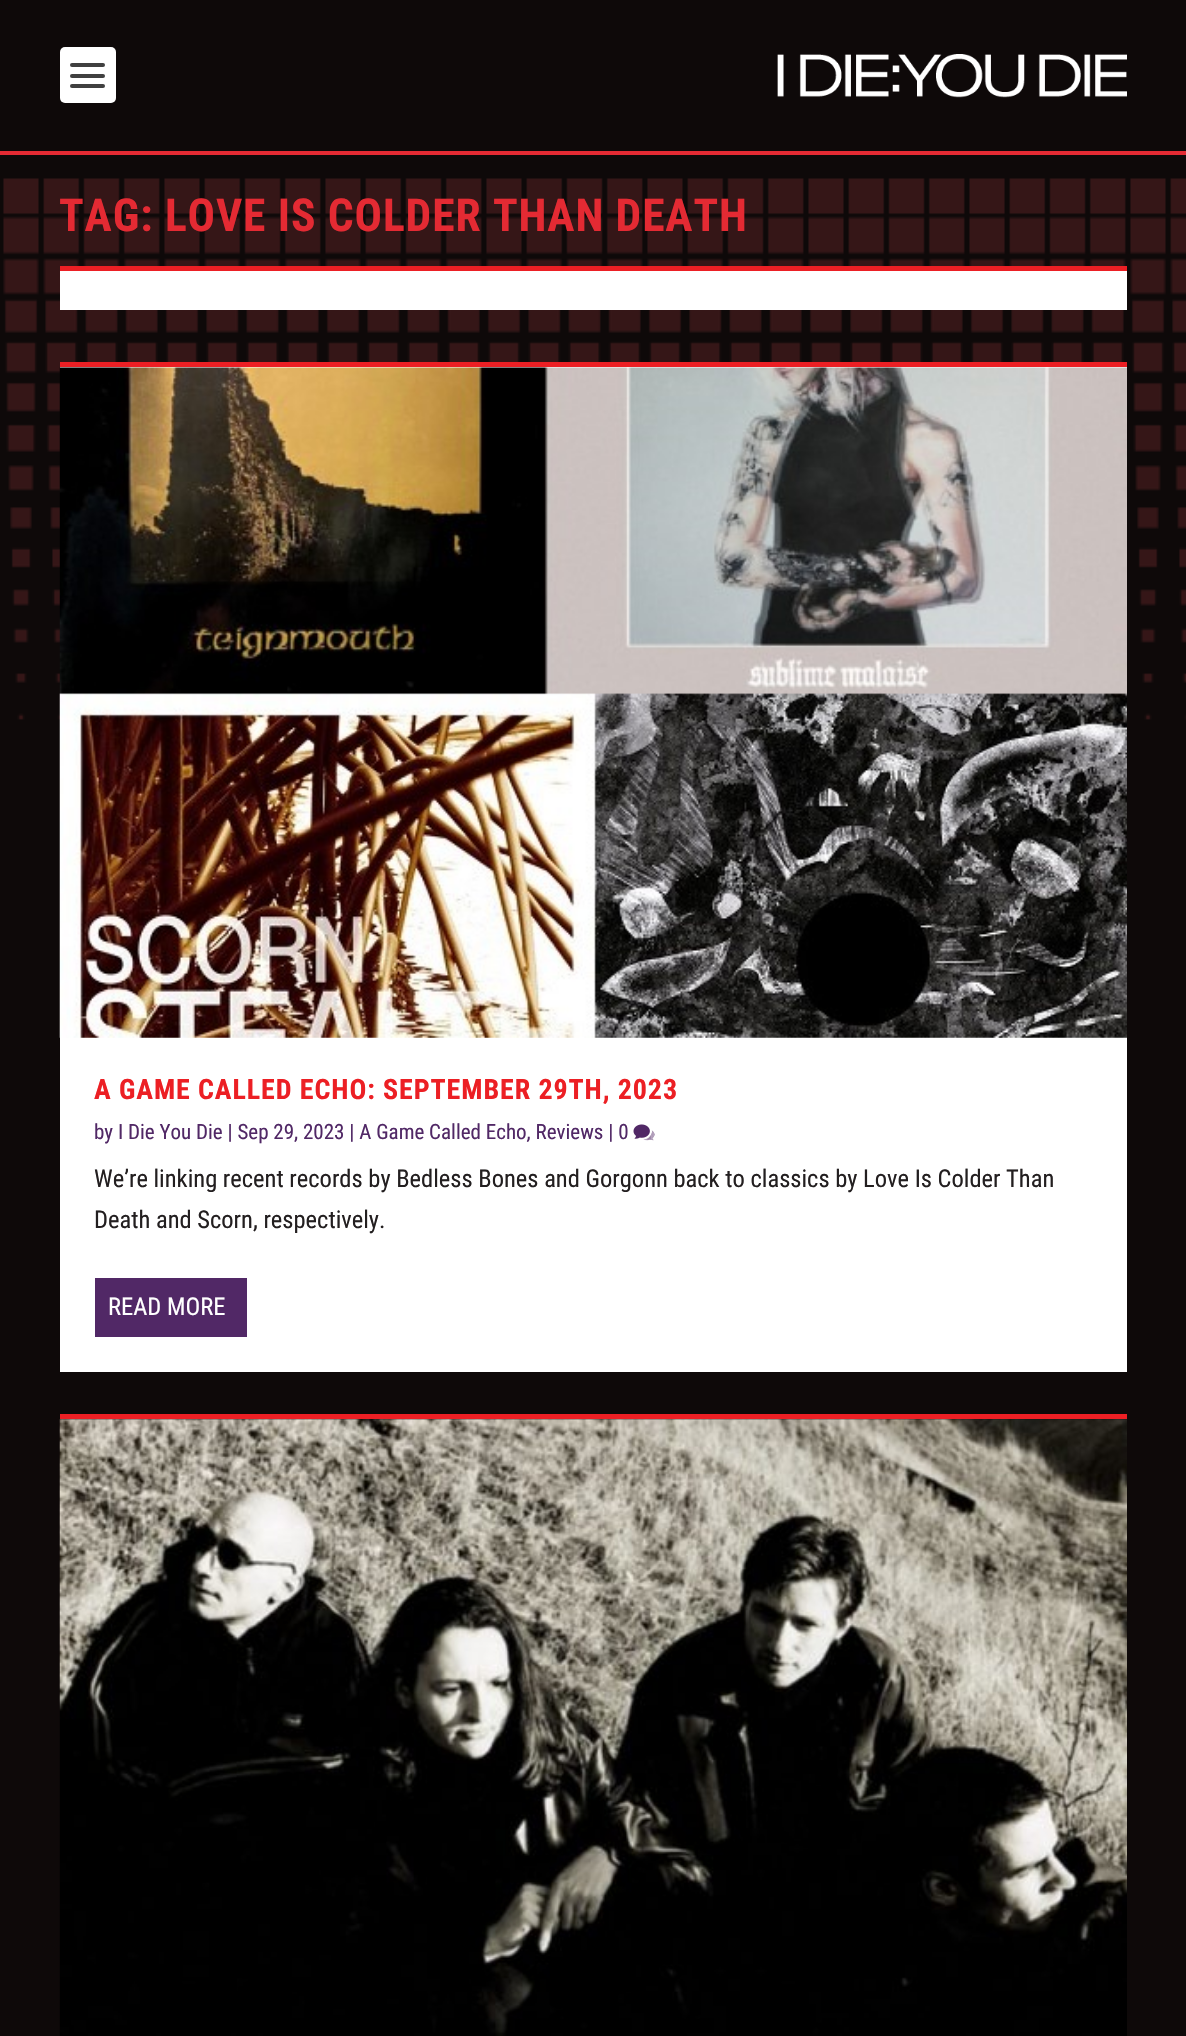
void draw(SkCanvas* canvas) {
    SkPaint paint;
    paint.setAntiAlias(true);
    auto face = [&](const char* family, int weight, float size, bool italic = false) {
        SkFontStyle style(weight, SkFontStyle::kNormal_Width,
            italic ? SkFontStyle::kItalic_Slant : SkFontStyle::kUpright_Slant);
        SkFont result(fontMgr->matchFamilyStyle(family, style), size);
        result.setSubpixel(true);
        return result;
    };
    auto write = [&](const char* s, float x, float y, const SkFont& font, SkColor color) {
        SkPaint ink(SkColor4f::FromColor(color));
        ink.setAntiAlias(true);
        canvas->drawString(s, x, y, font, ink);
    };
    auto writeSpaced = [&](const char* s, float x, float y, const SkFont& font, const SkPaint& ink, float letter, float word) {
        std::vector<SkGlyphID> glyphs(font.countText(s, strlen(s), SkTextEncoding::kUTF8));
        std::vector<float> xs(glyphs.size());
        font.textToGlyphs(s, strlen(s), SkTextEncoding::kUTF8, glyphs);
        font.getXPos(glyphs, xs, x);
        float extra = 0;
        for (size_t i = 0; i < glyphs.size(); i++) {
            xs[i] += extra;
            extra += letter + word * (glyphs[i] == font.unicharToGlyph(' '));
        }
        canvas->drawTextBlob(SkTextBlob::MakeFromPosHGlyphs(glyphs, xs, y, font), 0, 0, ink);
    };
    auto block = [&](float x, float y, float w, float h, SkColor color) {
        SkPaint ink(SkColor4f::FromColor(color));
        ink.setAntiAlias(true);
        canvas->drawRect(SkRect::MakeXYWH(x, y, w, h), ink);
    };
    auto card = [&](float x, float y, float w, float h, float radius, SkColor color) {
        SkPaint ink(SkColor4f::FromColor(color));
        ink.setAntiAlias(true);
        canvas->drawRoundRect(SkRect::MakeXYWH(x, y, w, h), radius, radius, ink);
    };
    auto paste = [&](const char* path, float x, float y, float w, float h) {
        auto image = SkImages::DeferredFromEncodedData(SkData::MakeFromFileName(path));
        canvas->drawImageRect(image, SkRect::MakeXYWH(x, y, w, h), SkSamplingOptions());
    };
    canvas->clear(SkColorSetRGB(14, 9, 9));
    paste("pic1.png", 3, 178, 1183, 542);
    block(0, 151, 1186, 4, SkColorSetRGB(228, 42, 51));
    card(60, 47, 56, 56, 5, SK_ColorWHITE);
    card(70, 63, 35, 4, 2, SkColorSetRGB(64, 64, 64));
    card(70, 74, 35, 4, 2, SkColorSetRGB(64, 64, 64));
    card(70, 84, 35, 4, 2, SkColorSetRGB(64, 64, 64));
    paste("pic2.png", 777, 54, 350, 44);
    auto kFont1 = face("Roboto Condensed", 700, 45.5f);
    paint.setColor(SkColorSetRGB(228, 42, 51));
    writeSpaced("TAG: LOVE IS COLDER THAN DEATH", 59, 231, kFont1, paint, 0.9f, 0);
    block(60, 271, 1067, 39, SK_ColorWHITE);
    block(60, 266, 1067, 5, SkColorSetRGB(236, 31, 36));
    block(60, 367, 1067, 1005, SK_ColorWHITE);
    block(60, 362, 1067, 5, SkColorSetRGB(236, 31, 36));
    paste("pic3.png", 59, 367, 1068, 671);
    auto kFont2 = face("Roboto Condensed", 700, 28);
    paint.setColor(SkColorSetRGB(236, 31, 36));
    writeSpaced("A GAME CALLED ECHO: SEPTEMBER 29TH, 2023", 94, 1099, kFont2, paint, 0.9f, 0);
    auto kFont3 = face("Roboto Condensed", 400, 21);
    write("by I Die You Die | Sep 29, 2023 | A Game Called Echo, Reviews | 0", 94, 1139, kFont3, SkColorSetRGB(81, 40, 102));
    paste("pic4.png", 633, 1124, 22, 17);
    auto kFont4 = face("Roboto Condensed", 400, 24.5f);
    write("We’re linking recent records by Bedless Bones and Gorgonn back to classics by Love Is Colder Than", 94, 1187, kFont4, SkColorSetRGB(35, 31, 32));
    write("Death and Scorn, respectively.", 94, 1228, kFont4, SkColorSetRGB(35, 31, 32));
    block(95, 1278, 152, 59, SkColorSetRGB(81, 40, 102));
    write("READ MORE", 108, 1315, kFont4, SK_ColorWHITE);
    block(60, 1414, 1067, 5, SkColorSetRGB(236, 31, 36));
    paste("pic5.png", 59, 1419, 1068, 617);
}
